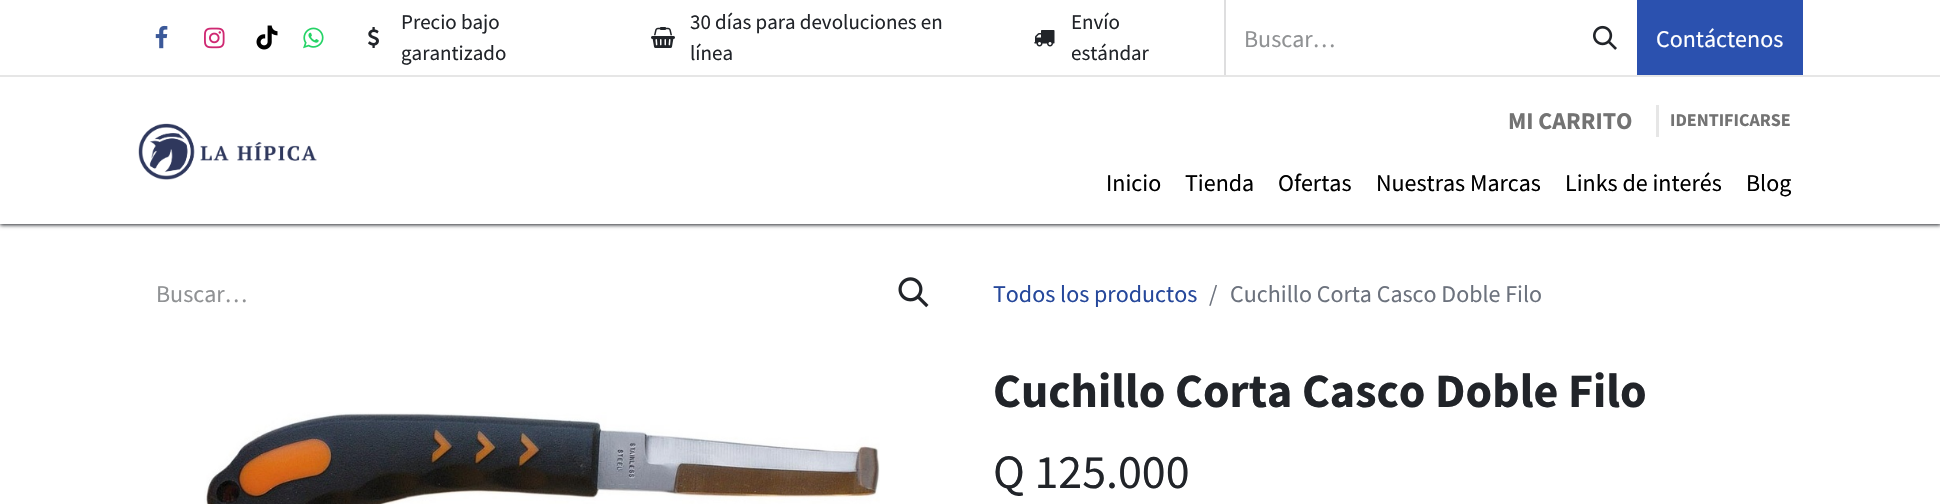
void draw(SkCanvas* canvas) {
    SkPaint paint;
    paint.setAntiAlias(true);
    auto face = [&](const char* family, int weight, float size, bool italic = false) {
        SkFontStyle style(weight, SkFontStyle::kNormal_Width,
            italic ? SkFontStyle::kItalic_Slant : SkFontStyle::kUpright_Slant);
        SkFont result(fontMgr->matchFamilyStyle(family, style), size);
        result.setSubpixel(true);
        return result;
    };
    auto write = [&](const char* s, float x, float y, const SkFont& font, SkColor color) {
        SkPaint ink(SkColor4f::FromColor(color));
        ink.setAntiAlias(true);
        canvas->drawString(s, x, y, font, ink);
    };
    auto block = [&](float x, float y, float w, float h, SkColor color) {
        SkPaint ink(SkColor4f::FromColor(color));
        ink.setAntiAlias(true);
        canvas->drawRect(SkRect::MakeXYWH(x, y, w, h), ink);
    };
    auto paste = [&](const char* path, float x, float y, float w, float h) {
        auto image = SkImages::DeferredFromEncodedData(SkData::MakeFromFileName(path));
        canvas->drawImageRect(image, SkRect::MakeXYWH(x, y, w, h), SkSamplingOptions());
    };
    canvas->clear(SK_ColorWHITE);
    paint.setColor(SkColorSetRGB(33, 36, 41));
    paint.setMaskFilter(SkMaskFilter::MakeBlur(kNormal_SkBlurStyle, 2));
    canvas->drawRect(SkRect::MakeXYWH(0, 2, 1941, 223), paint);
    paint.setMaskFilter(nullptr);
    block(0, 0, 1940, 224, SK_ColorWHITE);
    block(0, 75, 1940, 2, SkColorSetRGB(230, 230, 230));
    paste("pic1.png", 155, 25, 13, 24);
    paste("pic2.png", 204, 27, 21, 22);
    paste("pic3.png", 256, 25, 22, 25);
    paste("pic4.png", 303, 27, 21, 22);
    auto kFont1 = face("Source Sans Pro", 400, 21);
    write("Precio bajo", 401, 29, kFont1, SkColorSetRGB(33, 36, 41));
    paste("pic5.png", 368, 27, 11, 21);
    write("garantizado", 401, 60, kFont1, SkColorSetRGB(33, 36, 41));
    write("30 días para devoluciones en", 690, 29, kFont1, SkColorSetRGB(33, 36, 41));
    paste("pic6.png", 651, 27, 24, 21);
    write("línea", 690, 60, kFont1, SkColorSetRGB(33, 36, 41));
    write("Envío", 1071, 29, kFont1, SkColorSetRGB(33, 36, 41));
    paste("pic7.png", 1034, 30, 21, 17);
    write("estándar", 1071, 60, kFont1, SkColorSetRGB(33, 36, 41));
    block(1224, 0, 2, 75, SkColorSetRGB(222, 222, 223));
    auto kFont2 = face("Source Sans Pro", 400, 24);
    write("Buscar…", 1244, 47, kFont2, SkColorSetRGB(144, 146, 148));
    paste("pic8.png", 1593, 25, 24, 25);
    block(1637, 0, 166, 75, SkColorSetRGB(43, 81, 175));
    write("Contáctenos", 1656, 47, kFont2, SK_ColorWHITE);
    paste("pic9.png", 138, 123, 179, 57);
    auto kFont3 = face("Source Sans Pro", 700, 24);
    write("MI CARRITO", 1508, 129, kFont3, SkColorSetRGB(115, 115, 115));
    block(1656, 105, 3, 32, SkColorSetRGB(230, 230, 230));
    auto kFont4 = face("Source Sans Pro", 700, 18);
    write("IDENTIFICARSE", 1670, 126, kFont4, SkColorSetRGB(115, 115, 115));
    write("Inicio", 1106, 191, kFont2, SK_ColorBLACK);
    write("Tienda", 1185, 191, kFont2, SK_ColorBLACK);
    write("Ofertas", 1278, 191, kFont2, SK_ColorBLACK);
    write("Nuestras Marcas", 1376, 191, kFont2, SK_ColorBLACK);
    write("Links de interés", 1565, 191, kFont2, SK_ColorBLACK);
    write("Blog", 1746, 191, kFont2, SK_ColorBLACK);
    write("Buscar…", 156, 302, kFont2, SkColorSetRGB(144, 146, 148));
    paste("pic10.png", 898, 277, 31, 31);
    write("Todos los productos", 993, 302, kFont2, SkColorSetRGB(38, 72, 155));
    write("/", 1209, 302, kFont2, SkColorSetRGB(108, 114, 125));
    write("Cuchillo Corta Casco Doble Filo", 1230, 302, kFont2, SkColorSetRGB(108, 114, 125));
    paste("pic11.png", 204, 412, 676, 92);
    auto kFont5 = face("Source Sans Pro", 700, 48);
    write("Cuchillo Corta Casco Doble Filo", 993, 407, kFont5, SkColorSetRGB(33, 36, 41));
    auto kFont6 = face("Source Sans Pro", 400, 48);
    write("Q 125.000", 993, 488, kFont6, SkColorSetRGB(33, 36, 41));
}
